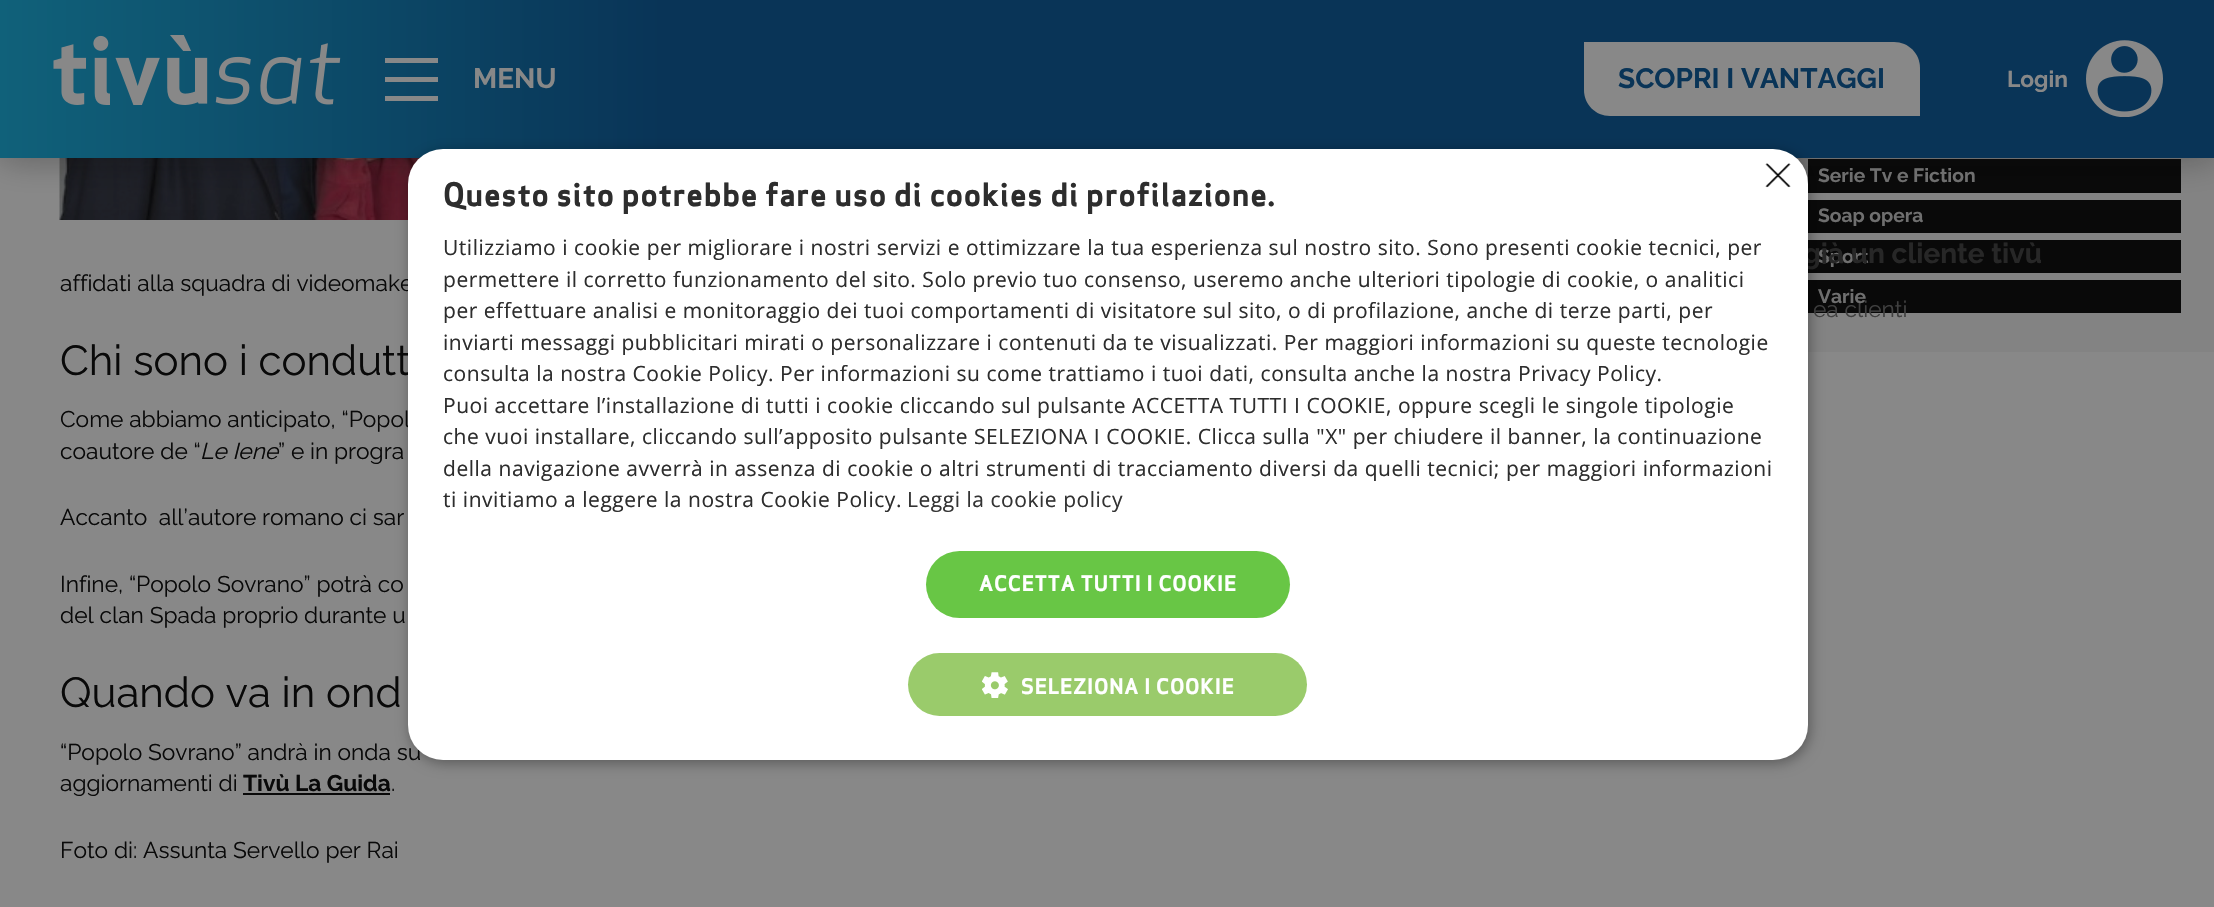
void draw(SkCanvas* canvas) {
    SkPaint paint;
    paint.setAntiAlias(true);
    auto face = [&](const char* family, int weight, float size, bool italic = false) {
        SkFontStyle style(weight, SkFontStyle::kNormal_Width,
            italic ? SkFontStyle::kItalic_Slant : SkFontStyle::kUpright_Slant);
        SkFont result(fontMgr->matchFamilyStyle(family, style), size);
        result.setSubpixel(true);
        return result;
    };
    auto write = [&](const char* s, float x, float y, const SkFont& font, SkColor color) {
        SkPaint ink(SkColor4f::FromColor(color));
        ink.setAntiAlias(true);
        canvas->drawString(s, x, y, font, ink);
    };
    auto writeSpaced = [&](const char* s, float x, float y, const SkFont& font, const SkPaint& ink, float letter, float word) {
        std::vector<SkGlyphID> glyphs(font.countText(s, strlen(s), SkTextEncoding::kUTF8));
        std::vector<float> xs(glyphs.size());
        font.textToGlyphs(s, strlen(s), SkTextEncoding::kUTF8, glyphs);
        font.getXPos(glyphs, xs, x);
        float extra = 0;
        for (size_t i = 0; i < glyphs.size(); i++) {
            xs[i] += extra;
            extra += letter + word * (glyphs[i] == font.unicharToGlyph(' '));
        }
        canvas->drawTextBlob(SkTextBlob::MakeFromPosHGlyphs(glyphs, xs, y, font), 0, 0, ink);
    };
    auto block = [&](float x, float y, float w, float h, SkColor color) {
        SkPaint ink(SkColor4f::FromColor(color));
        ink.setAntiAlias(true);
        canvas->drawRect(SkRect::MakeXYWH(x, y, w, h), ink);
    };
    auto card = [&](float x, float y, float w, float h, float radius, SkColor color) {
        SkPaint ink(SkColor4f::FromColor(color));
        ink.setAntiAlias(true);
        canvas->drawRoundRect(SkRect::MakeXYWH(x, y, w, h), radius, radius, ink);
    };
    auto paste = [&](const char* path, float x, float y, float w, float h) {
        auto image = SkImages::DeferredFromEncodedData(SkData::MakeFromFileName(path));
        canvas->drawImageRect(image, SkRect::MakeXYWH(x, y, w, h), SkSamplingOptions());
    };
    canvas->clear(SkColorSetRGB(136, 136, 136));
    block(1796, 158, 418, 194, SkColorSetRGB(131, 131, 131));
    block(1808, 159, 373, 34, SkColorSetRGB(9, 9, 9));
    block(1808, 200, 373, 33, SkColorSetRGB(9, 9, 9));
    paste("pic3.png", 59, 158, 361, 62);
    paint.setColor(SkColorSetARGB(89, 9, 9, 9));
    paint.setMaskFilter(SkMaskFilter::MakeBlur(kNormal_SkBlurStyle, 17.5f));
    canvas->drawRect(SkRect::MakeXYWH(0, 0, 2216, 158), paint);
    paint.setMaskFilter(nullptr);
    {
        const SkColor colors[] = {SkColorSetRGB(16, 97, 122), SkColorSetRGB(9, 52, 87)};
        const float stops[] = {0, 0.3f};
        const SkPoint ends[] = {{0, 79}, {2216, 79}};
        paint.setShader(SkGradientShader::MakeLinear(ends, colors, stops, 2, SkTileMode::kClamp));
        paint.setAlpha(255);
    }
    canvas->drawRect(SkRect::MakeXYWH(0, 0, 2214, 158), paint);
    paste("pic1.png", 53, 35, 288, 70);
    block(385, 77, 53, 5, SkColorSetRGB(136, 136, 136));
    block(385, 58, 53, 5, SkColorSetRGB(136, 136, 136));
    block(385, 96, 53, 5, SkColorSetRGB(136, 136, 136));
    auto kFont1 = face("Raleway", 700, 28);
    write("MENU", 473, 88, kFont1, SkColorSetRGB(136, 136, 136));
    paint.setShader(nullptr);
    paint.setColor(SkColorSetRGB(136, 136, 136));
    canvas->drawPath(SkPathBuilder().moveTo(1584, 42).lineTo(1894, 42).cubicTo(1908.5f, 42, 1920, 53.5f, 1920, 68).lineTo(1920, 116).lineTo(1610, 116).cubicTo(1595.5f, 116, 1584, 104.5f, 1584, 90).close().detach(), paint);
    write("SCOPRI I VANTAGGI", 1618, 88, kFont1, SkColorSetRGB(9, 52, 87));
    auto kFont2 = face("Raleway", 700, 22.75f);
    write("Login", 2007, 87, kFont2, SkColorSetRGB(136, 136, 136));
    paste("pic2.png", 2086, 40, 77, 77);
    block(1808, 240, 373, 33, SkColorSetRGB(9, 9, 9));
    auto kFont3 = face("Raleway", 700, 19.25f);
    write("Sport", 1818, 263, kFont3, SkColorSetRGB(111, 111, 111));
    write("già un cliente tivù", 1803, 263, kFont1, SkColorSetRGB(39, 39, 39));
    block(1808, 280, 373, 33, SkColorSetRGB(9, 9, 9));
    auto kFont4 = face("Raleway", 400, 22.75f);
    write("ea clienti", 1813, 317, kFont4, SkColorSetRGB(64, 64, 64));
    write("Serie Tv e Fiction", 1818, 182, kFont3, SkColorSetRGB(111, 111, 111));
    write("Soap opera", 1818, 222, kFont3, SkColorSetRGB(111, 111, 111));
    write("Varie", 1818, 303, kFont3, SkColorSetRGB(111, 111, 111));
    write("affidati alla squadra di videomake", 60, 291, kFont4, SkColorSetRGB(9, 9, 9));
    auto kFont5 = face("Raleway", 400, 42);
    write("Chi sono i condutt", 60, 375, kFont5, SkColorSetRGB(9, 9, 9));
    write("Come abbiamo anticipato, “Popol", 60, 427, kFont4, SkColorSetRGB(9, 9, 9));
    write("coautore de “", 60, 459, kFont4, SkColorSetRGB(9, 9, 9));
    auto kFont6 = face("Raleway", 400, 22.75f, true);
    write("Le Iene", 200, 459, kFont6, SkColorSetRGB(9, 9, 9));
    write("” e in progra", 278, 459, kFont4, SkColorSetRGB(9, 9, 9));
    write("Accanto  all’autore romano ci sar", 60, 525, kFont4, SkColorSetRGB(9, 9, 9));
    write("Infine, “Popolo Sovrano” potrà co", 60, 592, kFont4, SkColorSetRGB(9, 9, 9));
    write("del clan Spada proprio durante u", 60, 623, kFont4, SkColorSetRGB(9, 9, 9));
    write("Quando va in ond", 60, 707, kFont5, SkColorSetRGB(9, 9, 9));
    write("“Popolo Sovrano” andrà in onda su", 60, 760, kFont4, SkColorSetRGB(9, 9, 9));
    write("aggiornamenti di", 60, 791, kFont4, SkColorSetRGB(9, 9, 9));
    write("Tivù La Guida", 243, 791, kFont2, SkColorSetRGB(9, 9, 9));
    block(243, 793, 147, 2, SkColorSetRGB(9, 9, 9));
    write(".", 391, 791, kFont4, SkColorSetRGB(9, 9, 9));
    write("Foto di: Assunta Servello per Rai", 60, 858, kFont4, SkColorSetRGB(9, 9, 9));
    paint.setColor(SkColorSetARGB(89, 0, 0, 0));
    paint.setMaskFilter(SkMaskFilter::MakeBlur(kNormal_SkBlurStyle, 7));
    canvas->drawRoundRect(SkRect::MakeXYWH(410, 152, 1400, 611), 35, 35, paint);
    paint.setMaskFilter(nullptr);
    card(408, 149, 1400, 611, 35, SK_ColorWHITE);
    auto kFont7 = face("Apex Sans", 700, 31.5f);
    paint.setColor(SkColorSetRGB(45, 45, 45));
    writeSpaced("Questo sito potrebbe fare uso di cookies di profilazione.", 443, 206, kFont7, paint, 0.7f, 0);
    auto kFont8 = face("Open Sans", 400, 21);
    writeSpaced("Utilizziamo i cookie per migliorare i nostri servizi e ottimizzare la tua esperienza sul nostro sito. Sono presenti cookie tecnici, per", 443, 255, kFont8, paint, 0.53f, 0);
    writeSpaced("permettere il corretto funzionamento del sito. Solo previo tuo consenso, useremo anche ulteriori tipologie di cookie, o analitici", 443, 287, kFont8, paint, 0.53f, 0);
    writeSpaced("per effettuare analisi e monitoraggio dei tuoi comportamenti di visitatore sul sito, o di profilazione, anche di terze parti, per", 443, 318, kFont8, paint, 0.53f, 0);
    writeSpaced("inviarti messaggi pubblicitari mirati o personalizzare i contenuti da te visualizzati. Per maggiori informazioni su queste tecnologie", 443, 350, kFont8, paint, 0.53f, 0);
    writeSpaced("consulta la nostra Cookie Policy. Per informazioni su come trattiamo i tuoi dati, consulta anche la nostra Privacy Policy.", 443, 381, kFont8, paint, 0.53f, 0);
    writeSpaced("Puoi accettare l’installazione di tutti i cookie cliccando sul pulsante ACCETTA TUTTI I COOKIE, oppure scegli le singole tipologie", 443, 413, kFont8, paint, 0.53f, 0);
    writeSpaced("che vuoi installare, cliccando sull’apposito pulsante SELEZIONA I COOKIE. Clicca sulla \"X\" per chiudere il banner, la continuazione", 443, 444, kFont8, paint, 0.53f, 0);
    writeSpaced("della navigazione avverrà in assenza di cookie o altri strumenti di tracciamento diversi da quelli tecnici; per maggiori informazioni", 443, 476, kFont8, paint, 0.53f, 0);
    writeSpaced("ti invitiamo a leggere la nostra Cookie Policy.", 443, 507, kFont8, paint, 0.53f, 0);
    paint.setColor(SkColorSetRGB(51, 51, 51));
    writeSpaced("Leggi la cookie policy", 907, 507, kFont8, paint, 0.53f, 0);
    paste("pic4.png", 1765, 163, 26, 25);
    card(926, 551, 364, 67, 33.5f, SkColorSetRGB(104, 198, 69));
    auto kFont9 = face("Apex Sans", 700, 21);
    paint.setColor(SK_ColorWHITE);
    writeSpaced("ACCETTA TUTTI I COOKIE", 979, 591, kFont9, paint, 0.7f, 0);
    card(908, 653, 399, 63, 31.5f, SkColorSetRGB(154, 203, 107));
    paste("pic5.png", 982, 672, 26, 26);
    writeSpaced("SELEZIONA I COOKIE", 1021, 694, kFont9, paint, 0.7f, 0);
}
